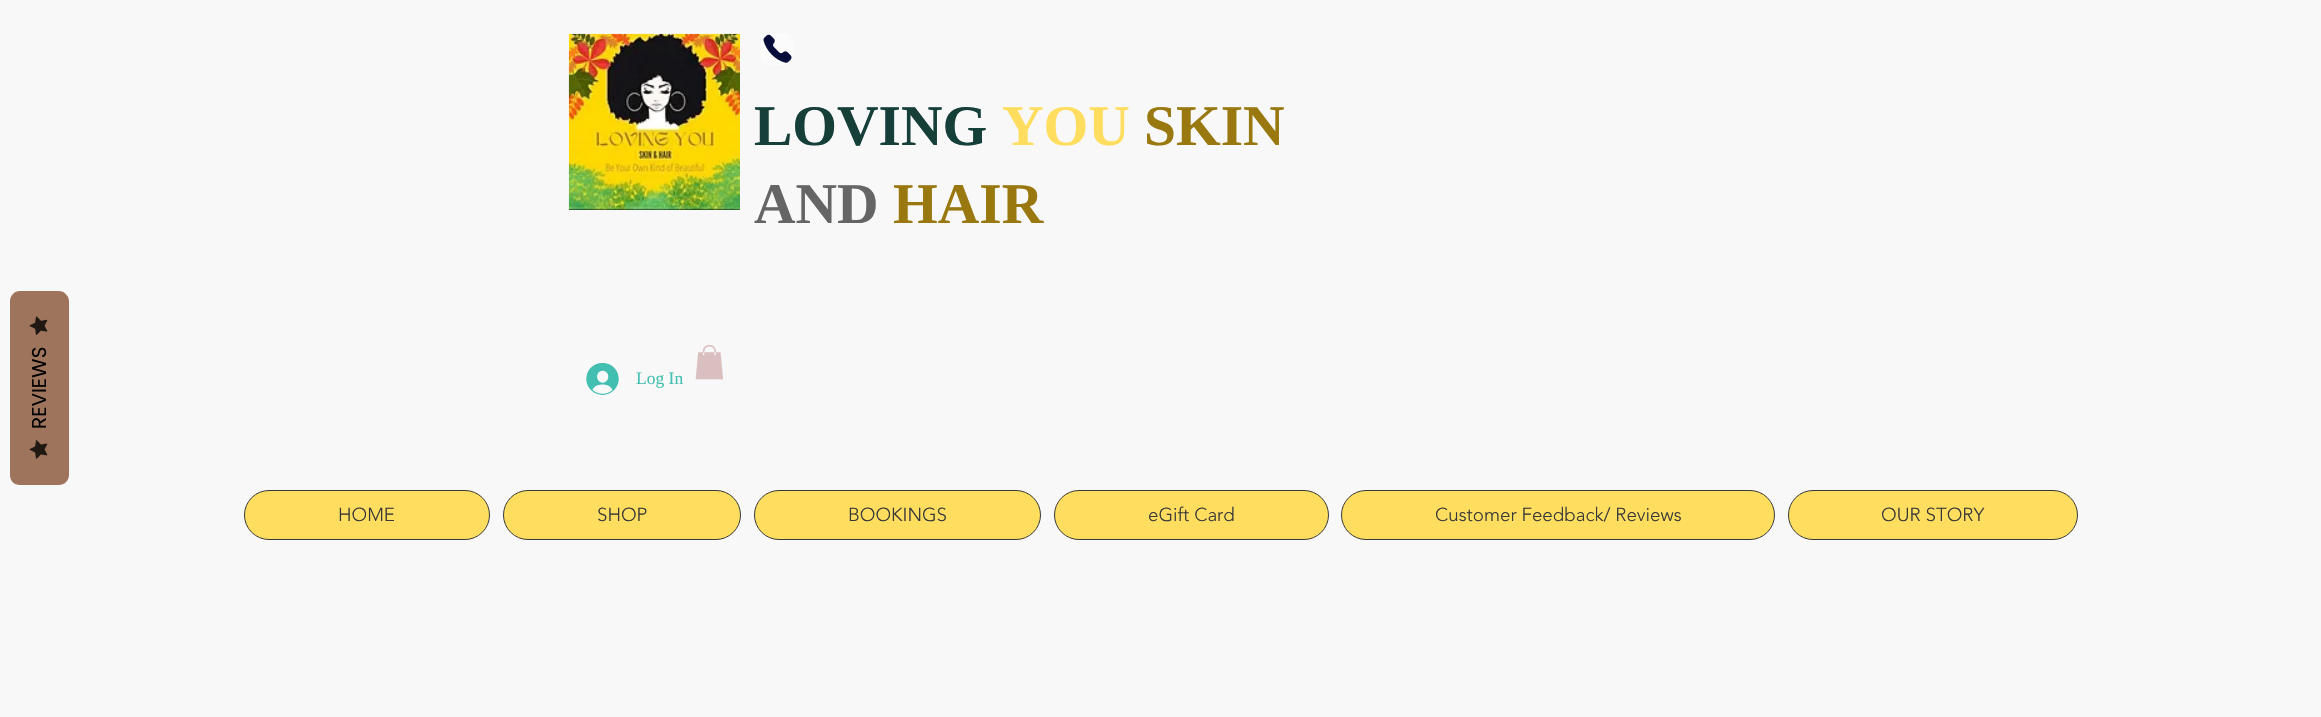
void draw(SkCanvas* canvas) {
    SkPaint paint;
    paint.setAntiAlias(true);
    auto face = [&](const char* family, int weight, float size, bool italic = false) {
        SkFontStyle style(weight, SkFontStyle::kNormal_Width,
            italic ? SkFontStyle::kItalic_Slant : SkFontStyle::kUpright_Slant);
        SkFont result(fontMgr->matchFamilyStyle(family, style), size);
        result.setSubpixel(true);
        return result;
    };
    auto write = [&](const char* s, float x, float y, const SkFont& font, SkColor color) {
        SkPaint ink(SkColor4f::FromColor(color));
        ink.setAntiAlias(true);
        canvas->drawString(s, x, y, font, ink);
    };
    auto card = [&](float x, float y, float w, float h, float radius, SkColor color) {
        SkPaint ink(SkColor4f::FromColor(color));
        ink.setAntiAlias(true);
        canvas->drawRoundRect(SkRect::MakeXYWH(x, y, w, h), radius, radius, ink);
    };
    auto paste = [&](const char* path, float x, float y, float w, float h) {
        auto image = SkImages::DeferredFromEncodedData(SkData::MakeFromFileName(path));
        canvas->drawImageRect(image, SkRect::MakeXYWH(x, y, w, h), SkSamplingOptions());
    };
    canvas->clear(SkColorSetRGB(248, 248, 248));
    paint.setColor(SkColorSetRGB(158, 117, 92));
    canvas->drawPath(SkPathBuilder().moveTo(10, 475).lineTo(10, 301).cubicTo(10, 296, 14, 291, 20, 291).lineTo(59, 291).cubicTo(64, 291, 69, 296, 69, 301).lineTo(69, 475).cubicTo(69, 481, 64, 485, 59, 485).lineTo(20, 485).cubicTo(14, 485, 10, 481, 10, 475).close().detach(), paint);
    paste("pic1.png", 29, 316, 19, 19);
    auto kFont1 = face("Poppins", 400, 20);
    canvas->save();
    canvas->rotate(-90, 46, 429);
    write("REVIEWS", 46, 429, kFont1, SK_ColorBLACK);
    canvas->restore();
    paste("pic2.png", 29, 440, 19, 19);
    paste("pic3.png", 568, 33, 172, 177);
    card(761, 33, 33, 32, 9, SkColorSetRGB(251, 251, 251));
    paste("pic4.png", 763, 34, 29, 29);
    auto kFont2 = face("Liberation Serif", 700, 57.5f);
    write("LOVING", 754, 145, kFont2, SkColorSetRGB(22, 63, 58));
    write("YOU", 1002, 145, kFont2, SkColorSetRGB(255, 222, 95));
    write("SKIN", 1144, 145, kFont2, SkColorSetRGB(153, 121, 15));
    write("AND", 754, 223, kFont2, SkColorSetRGB(101, 101, 101));
    write("HAIR", 893, 223, kFont2, SkColorSetRGB(153, 121, 15));
    paste("pic5.png", 586, 363, 33, 32);
    auto kFont3 = face("Liberation Serif", 400, 17.5f);
    write("Log In", 636, 384, kFont3, SkColorSetRGB(66, 191, 176));
    paste("pic6.png", 695, 345, 28, 35);
    paint.setColor(SkColorSetRGB(255, 222, 95));
    canvas->drawRoundRect(SkRect::MakeXYWH(244.5f, 490.5f, 245, 49), 24.5f, 24.5f, paint);
    paint.setStyle(SkPaint::kStroke_Style);
    paint.setStrokeWidth(1);
    paint.setColor(SkColorSetRGB(56, 56, 56));
    canvas->drawRoundRect(SkRect::MakeXYWH(244.5f, 490.5f, 245, 49), 24.5f, 24.5f, paint);
    auto kFont4 = face("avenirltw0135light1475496", 300, 18.75f);
    write("HOME", 338, 521, kFont4, SkColorSetRGB(56, 56, 56));
    paint.setStyle(SkPaint::kFill_Style);
    paint.setColor(SkColorSetRGB(255, 222, 95));
    canvas->drawRoundRect(SkRect::MakeXYWH(503.5f, 490.5f, 237, 49), 24.5f, 24.5f, paint);
    paint.setStyle(SkPaint::kStroke_Style);
    paint.setColor(SkColorSetRGB(56, 56, 56));
    canvas->drawRoundRect(SkRect::MakeXYWH(503.5f, 490.5f, 237, 49), 24.5f, 24.5f, paint);
    write("SHOP", 597, 521, kFont4, SkColorSetRGB(56, 56, 56));
    paint.setStyle(SkPaint::kFill_Style);
    paint.setColor(SkColorSetRGB(255, 222, 95));
    canvas->drawRoundRect(SkRect::MakeXYWH(754.5f, 490.5f, 286, 49), 24.5f, 24.5f, paint);
    paint.setStyle(SkPaint::kStroke_Style);
    paint.setColor(SkColorSetRGB(56, 56, 56));
    canvas->drawRoundRect(SkRect::MakeXYWH(754.5f, 490.5f, 286, 49), 24.5f, 24.5f, paint);
    write("BOOKINGS", 848, 521, kFont4, SkColorSetRGB(56, 56, 56));
    paint.setStyle(SkPaint::kFill_Style);
    paint.setColor(SkColorSetRGB(255, 222, 95));
    canvas->drawRoundRect(SkRect::MakeXYWH(1054.5f, 490.5f, 274, 49), 24.5f, 24.5f, paint);
    paint.setStyle(SkPaint::kStroke_Style);
    paint.setColor(SkColorSetRGB(56, 56, 56));
    canvas->drawRoundRect(SkRect::MakeXYWH(1054.5f, 490.5f, 274, 49), 24.5f, 24.5f, paint);
    write("eGift Card", 1148, 521, kFont4, SkColorSetRGB(56, 56, 56));
    paint.setStyle(SkPaint::kFill_Style);
    paint.setColor(SkColorSetRGB(255, 222, 95));
    canvas->drawRoundRect(SkRect::MakeXYWH(1341.5f, 490.5f, 433, 49), 24.5f, 24.5f, paint);
    paint.setStyle(SkPaint::kStroke_Style);
    paint.setColor(SkColorSetRGB(56, 56, 56));
    canvas->drawRoundRect(SkRect::MakeXYWH(1341.5f, 490.5f, 433, 49), 24.5f, 24.5f, paint);
    write("Customer Feedback/ Reviews", 1435, 521, kFont4, SkColorSetRGB(56, 56, 56));
    paint.setStyle(SkPaint::kFill_Style);
    paint.setColor(SkColorSetRGB(255, 222, 95));
    canvas->drawRoundRect(SkRect::MakeXYWH(1788.5f, 490.5f, 289, 49), 24.5f, 24.5f, paint);
    paint.setStyle(SkPaint::kStroke_Style);
    paint.setColor(SkColorSetRGB(56, 56, 56));
    canvas->drawRoundRect(SkRect::MakeXYWH(1788.5f, 490.5f, 289, 49), 24.5f, 24.5f, paint);
    write("OUR STORY", 1881, 521, kFont4, SkColorSetRGB(56, 56, 56));
}
